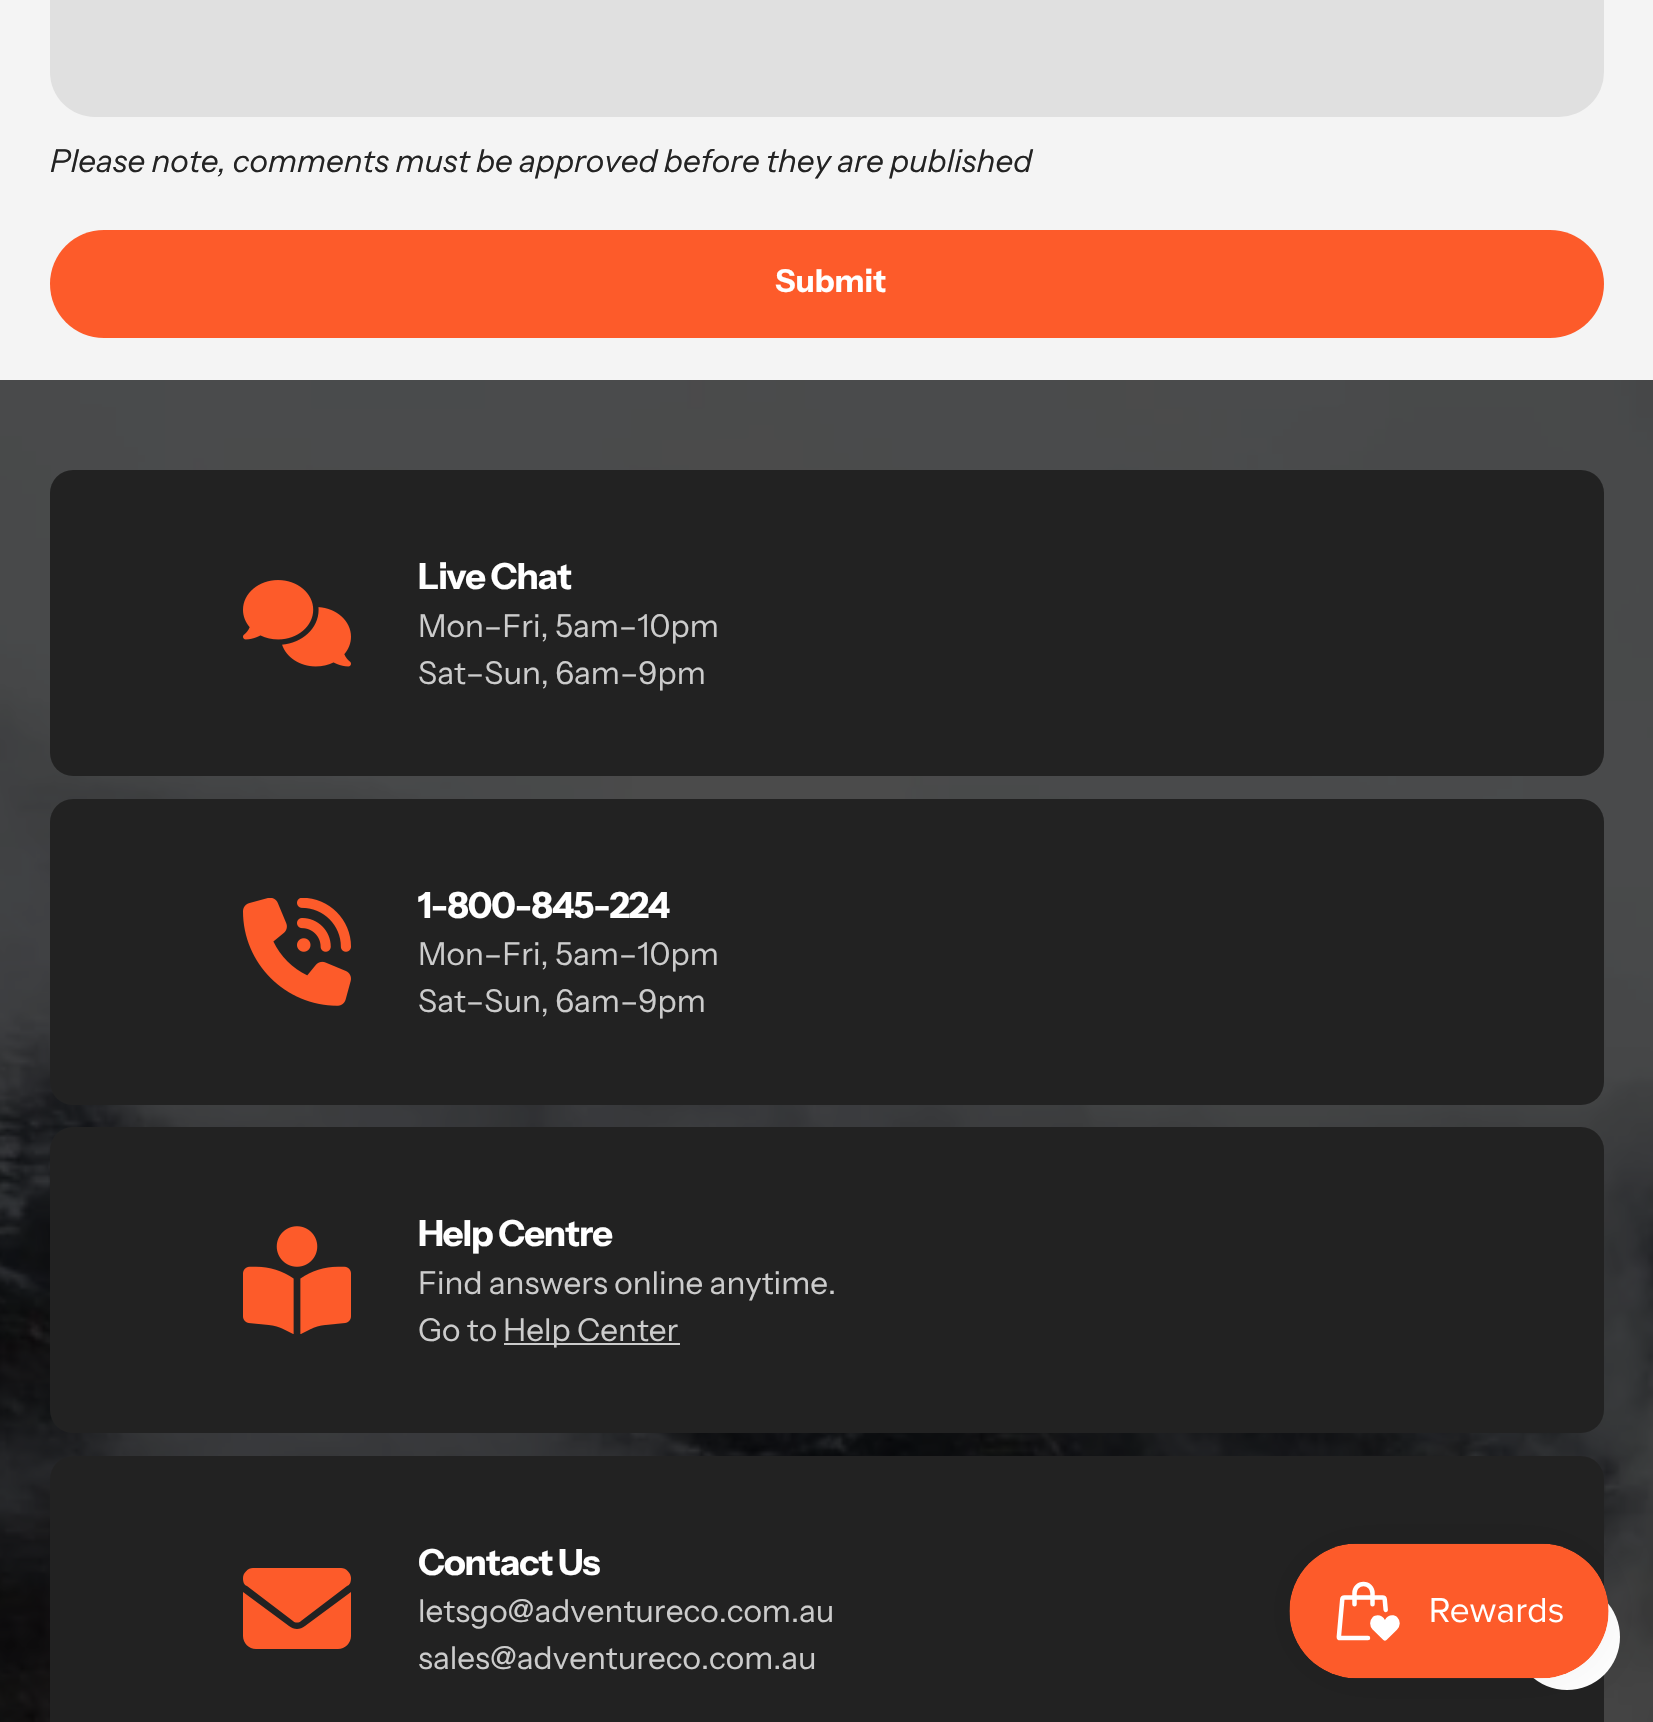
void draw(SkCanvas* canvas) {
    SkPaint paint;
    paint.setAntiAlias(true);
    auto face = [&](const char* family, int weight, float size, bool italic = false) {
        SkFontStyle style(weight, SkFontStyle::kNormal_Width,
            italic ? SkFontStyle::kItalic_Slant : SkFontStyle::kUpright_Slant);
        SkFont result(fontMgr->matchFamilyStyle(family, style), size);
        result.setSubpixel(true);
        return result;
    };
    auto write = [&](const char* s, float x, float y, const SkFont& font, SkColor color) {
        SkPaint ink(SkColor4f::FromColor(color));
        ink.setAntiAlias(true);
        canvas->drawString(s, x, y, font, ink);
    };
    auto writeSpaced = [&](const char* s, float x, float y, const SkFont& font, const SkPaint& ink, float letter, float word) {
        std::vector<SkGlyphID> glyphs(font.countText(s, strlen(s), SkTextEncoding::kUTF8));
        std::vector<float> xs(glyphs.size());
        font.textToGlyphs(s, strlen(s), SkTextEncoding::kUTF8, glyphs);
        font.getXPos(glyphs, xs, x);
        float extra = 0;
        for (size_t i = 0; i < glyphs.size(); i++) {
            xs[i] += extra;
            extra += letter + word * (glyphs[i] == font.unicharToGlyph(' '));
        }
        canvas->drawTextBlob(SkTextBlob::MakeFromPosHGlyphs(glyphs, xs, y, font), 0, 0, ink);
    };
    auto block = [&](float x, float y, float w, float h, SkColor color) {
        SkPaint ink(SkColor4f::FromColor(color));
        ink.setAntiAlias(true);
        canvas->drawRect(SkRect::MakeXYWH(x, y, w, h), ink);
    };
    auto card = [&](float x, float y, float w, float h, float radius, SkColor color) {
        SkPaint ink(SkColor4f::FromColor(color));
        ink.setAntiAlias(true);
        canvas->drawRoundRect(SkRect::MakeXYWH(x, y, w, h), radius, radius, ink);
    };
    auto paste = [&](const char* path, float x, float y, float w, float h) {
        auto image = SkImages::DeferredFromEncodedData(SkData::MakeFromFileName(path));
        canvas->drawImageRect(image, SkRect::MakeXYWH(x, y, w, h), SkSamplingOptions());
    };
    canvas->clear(SkColorSetRGB(244, 244, 244));
    card(50, -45, 1554, 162, 45, SkColorSetRGB(224, 224, 224));
    auto kFont1 = face("Instrument Sans", 400, 31.5f, true);
    write("Please note, comments must be approved before they are published", 50, 172, kFont1, SkColorSetRGB(35, 35, 35));
    card(50, 230, 1554, 108, 54, SkColorSetRGB(253, 91, 42));
    auto kFont2 = face("Instrument Sans", 700, 31.5f);
    write("Submit", 775, 292, kFont2, SK_ColorWHITE);
    block(0, 380, 1653, 1342, SK_ColorBLACK);
    paste("pic1.png", 0, 380, 1653, 1342);
    card(50, 470, 1554, 306, 23, SkColorSetRGB(34, 34, 34));
    paste("pic2.png", 243, 580, 108, 87);
    auto kFont3 = face("Instrument Sans", 700, 36);
    paint.setColor(SK_ColorWHITE);
    writeSpaced("Live Chat", 418, 589, kFont3, paint, -1.1f, 0);
    auto kFont4 = face("Instrument Sans", 400, 31.5f);
    write("Mon–Fri, 5am–10pm", 418, 637, kFont4, SkColorSetRGB(204, 204, 204));
    write("Sat–Sun, 6am–9pm", 418, 684, kFont4, SkColorSetRGB(204, 204, 204));
    card(50, 799, 1554, 306, 23, SkColorSetRGB(34, 34, 34));
    paste("pic3.png", 243, 898, 108, 108);
    writeSpaced("1-800-845-224", 418, 918, kFont3, paint, -1.1f, 0);
    write("Mon–Fri, 5am–10pm", 418, 965, kFont4, SkColorSetRGB(204, 204, 204));
    write("Sat–Sun, 6am–9pm", 418, 1012, kFont4, SkColorSetRGB(204, 204, 204));
    card(50, 1127, 1554, 306, 23, SkColorSetRGB(34, 34, 34));
    paste("pic4.png", 243, 1226, 108, 108);
    writeSpaced("Help Centre", 418, 1246, kFont3, paint, -1.1f, 0);
    write("Find answers online anytime.", 418, 1294, kFont4, SkColorSetRGB(204, 204, 204));
    write("Go to", 418, 1341, kFont4, SkColorSetRGB(204, 204, 204));
    block(504, 1343, 176, 2, SkColorSetRGB(204, 204, 204));
    write("Help Center", 503, 1341, kFont4, SkColorSetRGB(204, 204, 204));
    card(50, 1456, 1554, 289, 23, SkColorSetRGB(34, 34, 34));
    paint.setColor(SkColorSetRGB(253, 91, 42));
    canvas->drawPath(SkPathBuilder().moveTo(253, 1568).cubicTo(248, 1568, 243, 1573, 243, 1578).cubicTo(243, 1582, 244, 1585, 247, 1586).lineTo(293, 1621).cubicTo(295, 1623, 299, 1623, 301, 1621).lineTo(347, 1586).cubicTo(350, 1585, 351, 1582, 351, 1578).cubicTo(351, 1573, 346, 1568, 341, 1568).close().moveTo(243, 1592).lineTo(243, 1636).cubicTo(243, 1643, 249, 1649, 256, 1649).lineTo(338, 1649).cubicTo(345, 1649, 351, 1643, 351, 1636).lineTo(351, 1592).lineTo(305, 1626).cubicTo(300, 1630, 294, 1630, 289, 1626).close().detach(), paint);
    paint.setColor(SK_ColorWHITE);
    writeSpaced("Contact Us", 418, 1575, kFont3, paint, -1.1f, 0);
    write("letsgo@adventureco.com.au", 418, 1622, kFont4, SkColorSetRGB(204, 204, 204));
    write("sales@adventureco.com.au", 418, 1669, kFont4, SkColorSetRGB(204, 204, 204));
    canvas->drawCircle(1567, 1637, 53, paint);
    paint.setColor(SkColorSetARGB(13, 0, 0, 0));
    paint.setMaskFilter(SkMaskFilter::MakeBlur(kNormal_SkBlurStyle, 28));
    canvas->drawRoundRect(SkRect::MakeXYWH(1289, 1544, 320, 135), 67.5f, 67.5f, paint);
    paint.setMaskFilter(nullptr);
    paste("pic5.png", 1289, 1543, 320, 136);
}
